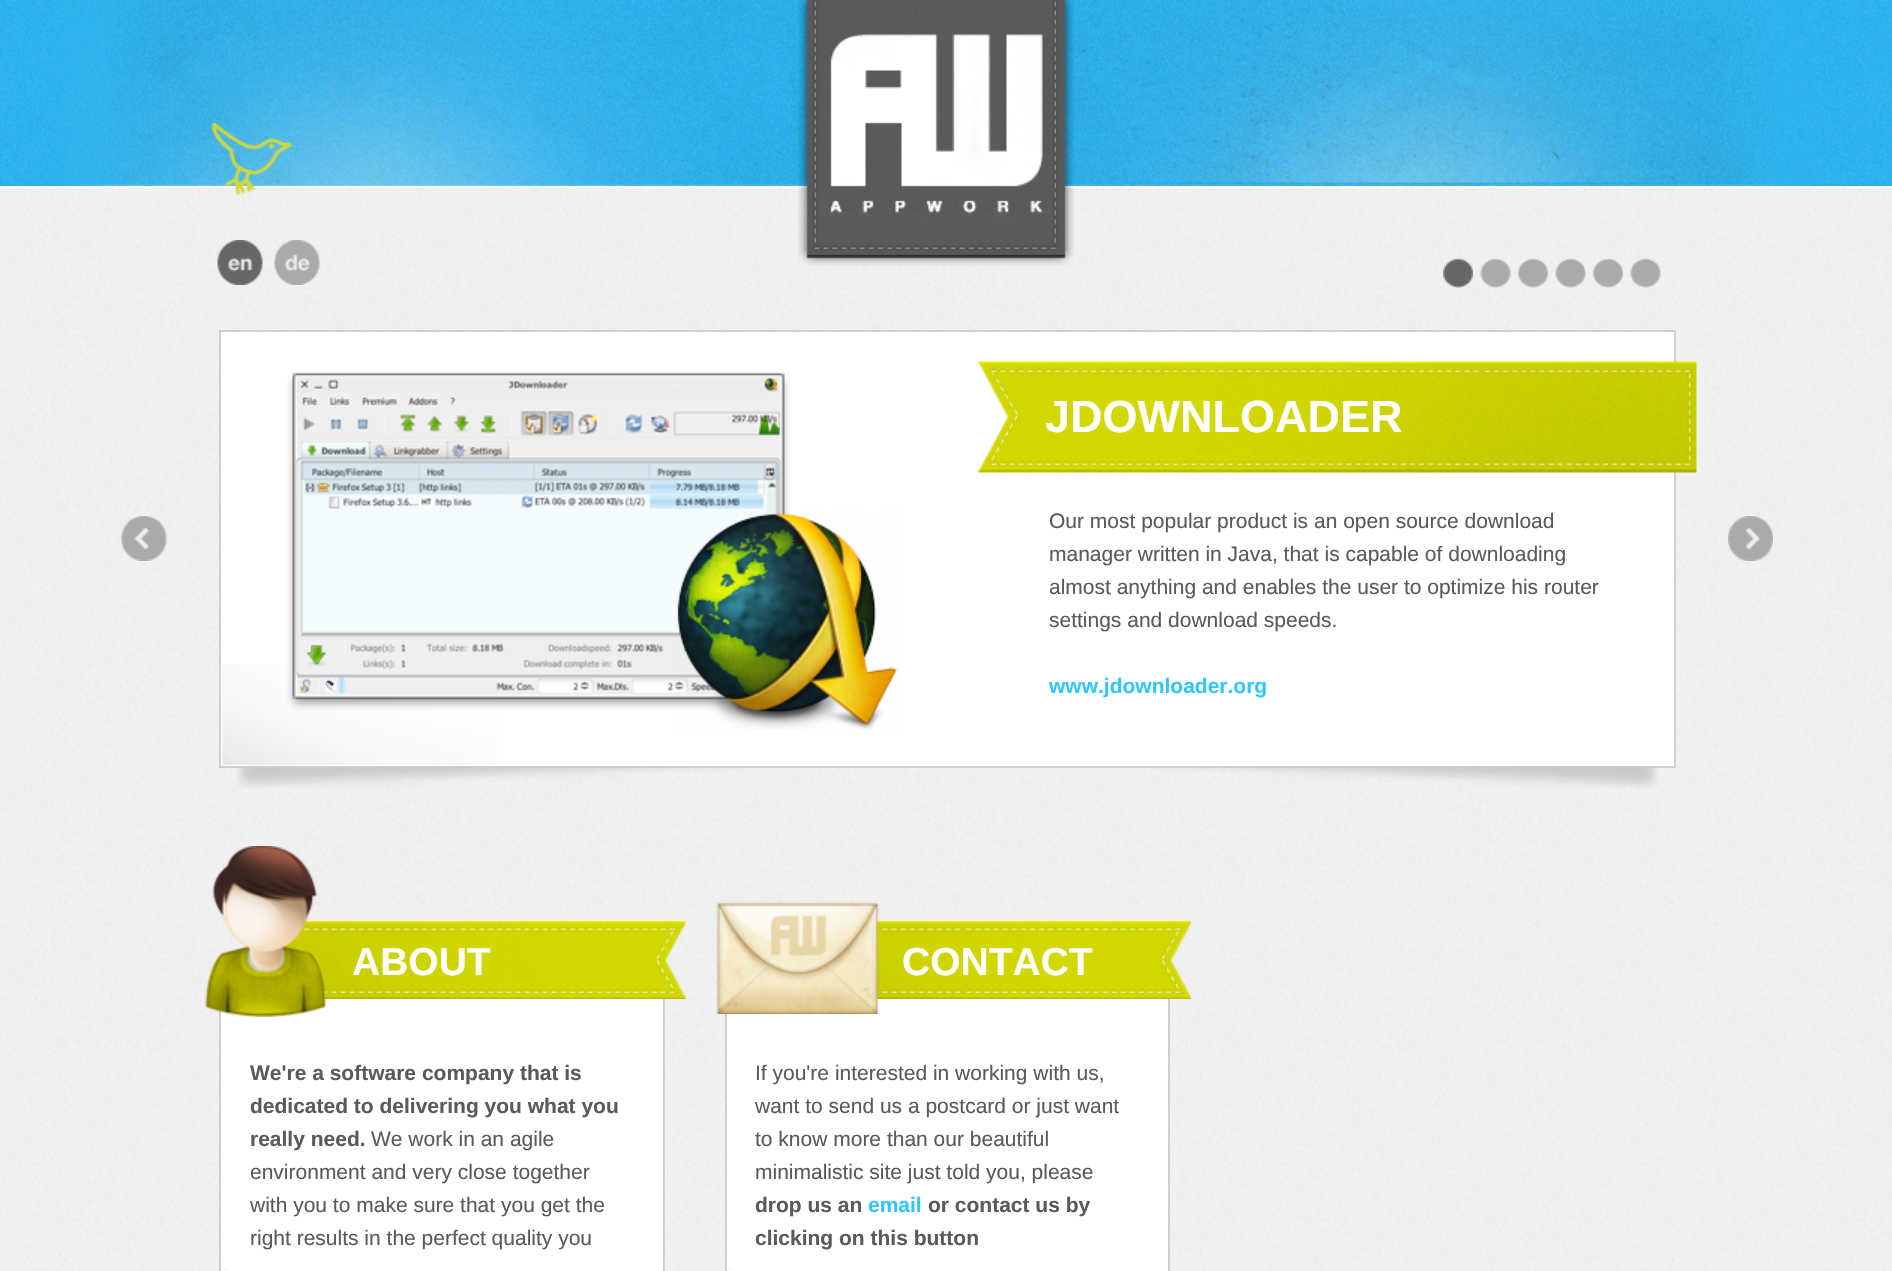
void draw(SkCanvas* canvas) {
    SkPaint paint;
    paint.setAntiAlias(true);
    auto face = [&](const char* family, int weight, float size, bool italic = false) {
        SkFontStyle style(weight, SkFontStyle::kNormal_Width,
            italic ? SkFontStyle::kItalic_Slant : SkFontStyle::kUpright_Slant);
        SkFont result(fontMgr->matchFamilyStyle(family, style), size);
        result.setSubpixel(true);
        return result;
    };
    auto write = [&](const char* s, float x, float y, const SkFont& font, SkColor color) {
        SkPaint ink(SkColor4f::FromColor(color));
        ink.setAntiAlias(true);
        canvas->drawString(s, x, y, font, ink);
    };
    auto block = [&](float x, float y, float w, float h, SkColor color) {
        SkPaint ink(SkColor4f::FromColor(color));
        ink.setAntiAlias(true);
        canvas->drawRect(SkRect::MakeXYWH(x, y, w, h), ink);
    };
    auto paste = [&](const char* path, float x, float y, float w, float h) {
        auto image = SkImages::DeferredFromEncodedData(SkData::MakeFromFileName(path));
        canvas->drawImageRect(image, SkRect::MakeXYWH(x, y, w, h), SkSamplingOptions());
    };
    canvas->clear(SK_ColorWHITE);
    paste("pic1.png", 0, 188, 1892, 1083);
    paste("pic2.png", 0, 0, 1892, 186);
    paste("pic3.png", 58, 0, 1755, 186);
    paste("pic4.png", 211, 123, 82, 72);
    paste("pic5.png", 798, 0, 276, 266);
    paste("pic6.png", 217, 240, 46, 45);
    paste("pic7.png", 274, 240, 46, 45);
    paste("pic8.png", 1443, 258, 30, 30);
    paste("pic9.png", 1480, 258, 31, 30);
    paste("pic10.png", 1518, 258, 30, 30);
    paste("pic11.png", 1555, 258, 31, 30);
    paste("pic12.png", 1593, 258, 30, 30);
    paste("pic13.png", 1630, 258, 31, 30);
    paste("pic14.png", 121, 516, 46, 45);
    block(221, 332, 1453, 434, SK_ColorWHITE);
    paste("pic15.png", 222, 664, 275, 102);
    paint.setStyle(SkPaint::kStroke_Style);
    paint.setStrokeWidth(2);
    paint.setColor(SkColorSetRGB(207, 207, 207));
    canvas->drawRect(SkRect::MakeXYWH(220, 331, 1455, 436), paint);
    paste("pic16.png", 287, 372, 611, 358);
    paste("pic17.png", 978, 361, 719, 112);
    auto kFont1 = face("Liberation Sans", 700, 45);
    write("JDOWNLOADER", 1045, 432, kFont1, SK_ColorWHITE);
    auto kFont2 = face("Liberation Sans", 400, 21);
    write("Our most popular product is an open source download", 1049, 528, kFont2, SkColorSetRGB(90, 90, 90));
    write("manager written in Java, that is capable of downloading", 1049, 561, kFont2, SkColorSetRGB(90, 90, 90));
    write("almost anything and enables the user to optimize his router", 1049, 594, kFont2, SkColorSetRGB(90, 90, 90));
    write("settings and download speeds.", 1049, 627, kFont2, SkColorSetRGB(90, 90, 90));
    auto kFont3 = face("Liberation Sans", 700, 21);
    write("www.jdownloader.org", 1049, 693, kFont3, SkColorSetRGB(50, 197, 254));
    paste("pic18.png", 236, 767, 508, 22);
    paste("pic19.png", 1151, 767, 508, 22);
    paste("pic20.png", 1728, 516, 45, 45);
    block(221, 999, 442, 272, SK_ColorWHITE);
    block(223, 1268, 6, 3, SkColorSetRGB(250, 250, 250));
    canvas->drawRect(SkRect::MakeXYWH(220, 981, 444, 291), paint);
    paste("pic22.png", 247, 921, 439, 78);
    paste("pic21.png", 205, 846, 121, 171);
    auto kFont4 = face("Liberation Sans", 700, 39);
    write("ABOUT", 352, 975, kFont4, SK_ColorWHITE);
    write("We're a software company that is", 250, 1080, kFont3, SkColorSetRGB(90, 90, 90));
    write("dedicated to delivering you what you", 250, 1113, kFont3, SkColorSetRGB(90, 90, 90));
    write("really need.", 250, 1146, kFont3, SkColorSetRGB(90, 90, 90));
    write("We work in an agile", 371, 1146, kFont2, SkColorSetRGB(90, 90, 90));
    write("environment and very close together", 250, 1179, kFont2, SkColorSetRGB(90, 90, 90));
    write("with you to make sure that you get the", 250, 1212, kFont2, SkColorSetRGB(90, 90, 90));
    write("right results in the perfect quality you", 250, 1245, kFont2, SkColorSetRGB(90, 90, 90));
    block(727, 999, 441, 272, SK_ColorWHITE);
    block(728, 1268, 6, 3, SkColorSetRGB(250, 250, 250));
    canvas->drawRect(SkRect::MakeXYWH(726, 981, 443, 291), paint);
    paste("pic24.png", 875, 921, 316, 78);
    paste("pic23.png", 714, 900, 167, 114);
    write("CONTACT", 902, 975, kFont4, SK_ColorWHITE);
    write("If you're interested in working with us,", 755, 1080, kFont2, SkColorSetRGB(90, 90, 90));
    write("want to send us a postcard or just want", 755, 1113, kFont2, SkColorSetRGB(90, 90, 90));
    write("to know more than our beautiful", 755, 1146, kFont2, SkColorSetRGB(90, 90, 90));
    write("minimalistic site just told you, please", 755, 1179, kFont2, SkColorSetRGB(90, 90, 90));
    write("drop us an", 755, 1212, kFont3, SkColorSetRGB(90, 90, 90));
    write("email", 868, 1212, kFont3, SkColorSetRGB(50, 197, 254));
    write("or contact us by", 928, 1212, kFont3, SkColorSetRGB(90, 90, 90));
    write("clicking on this button", 755, 1245, kFont3, SkColorSetRGB(90, 90, 90));
}
